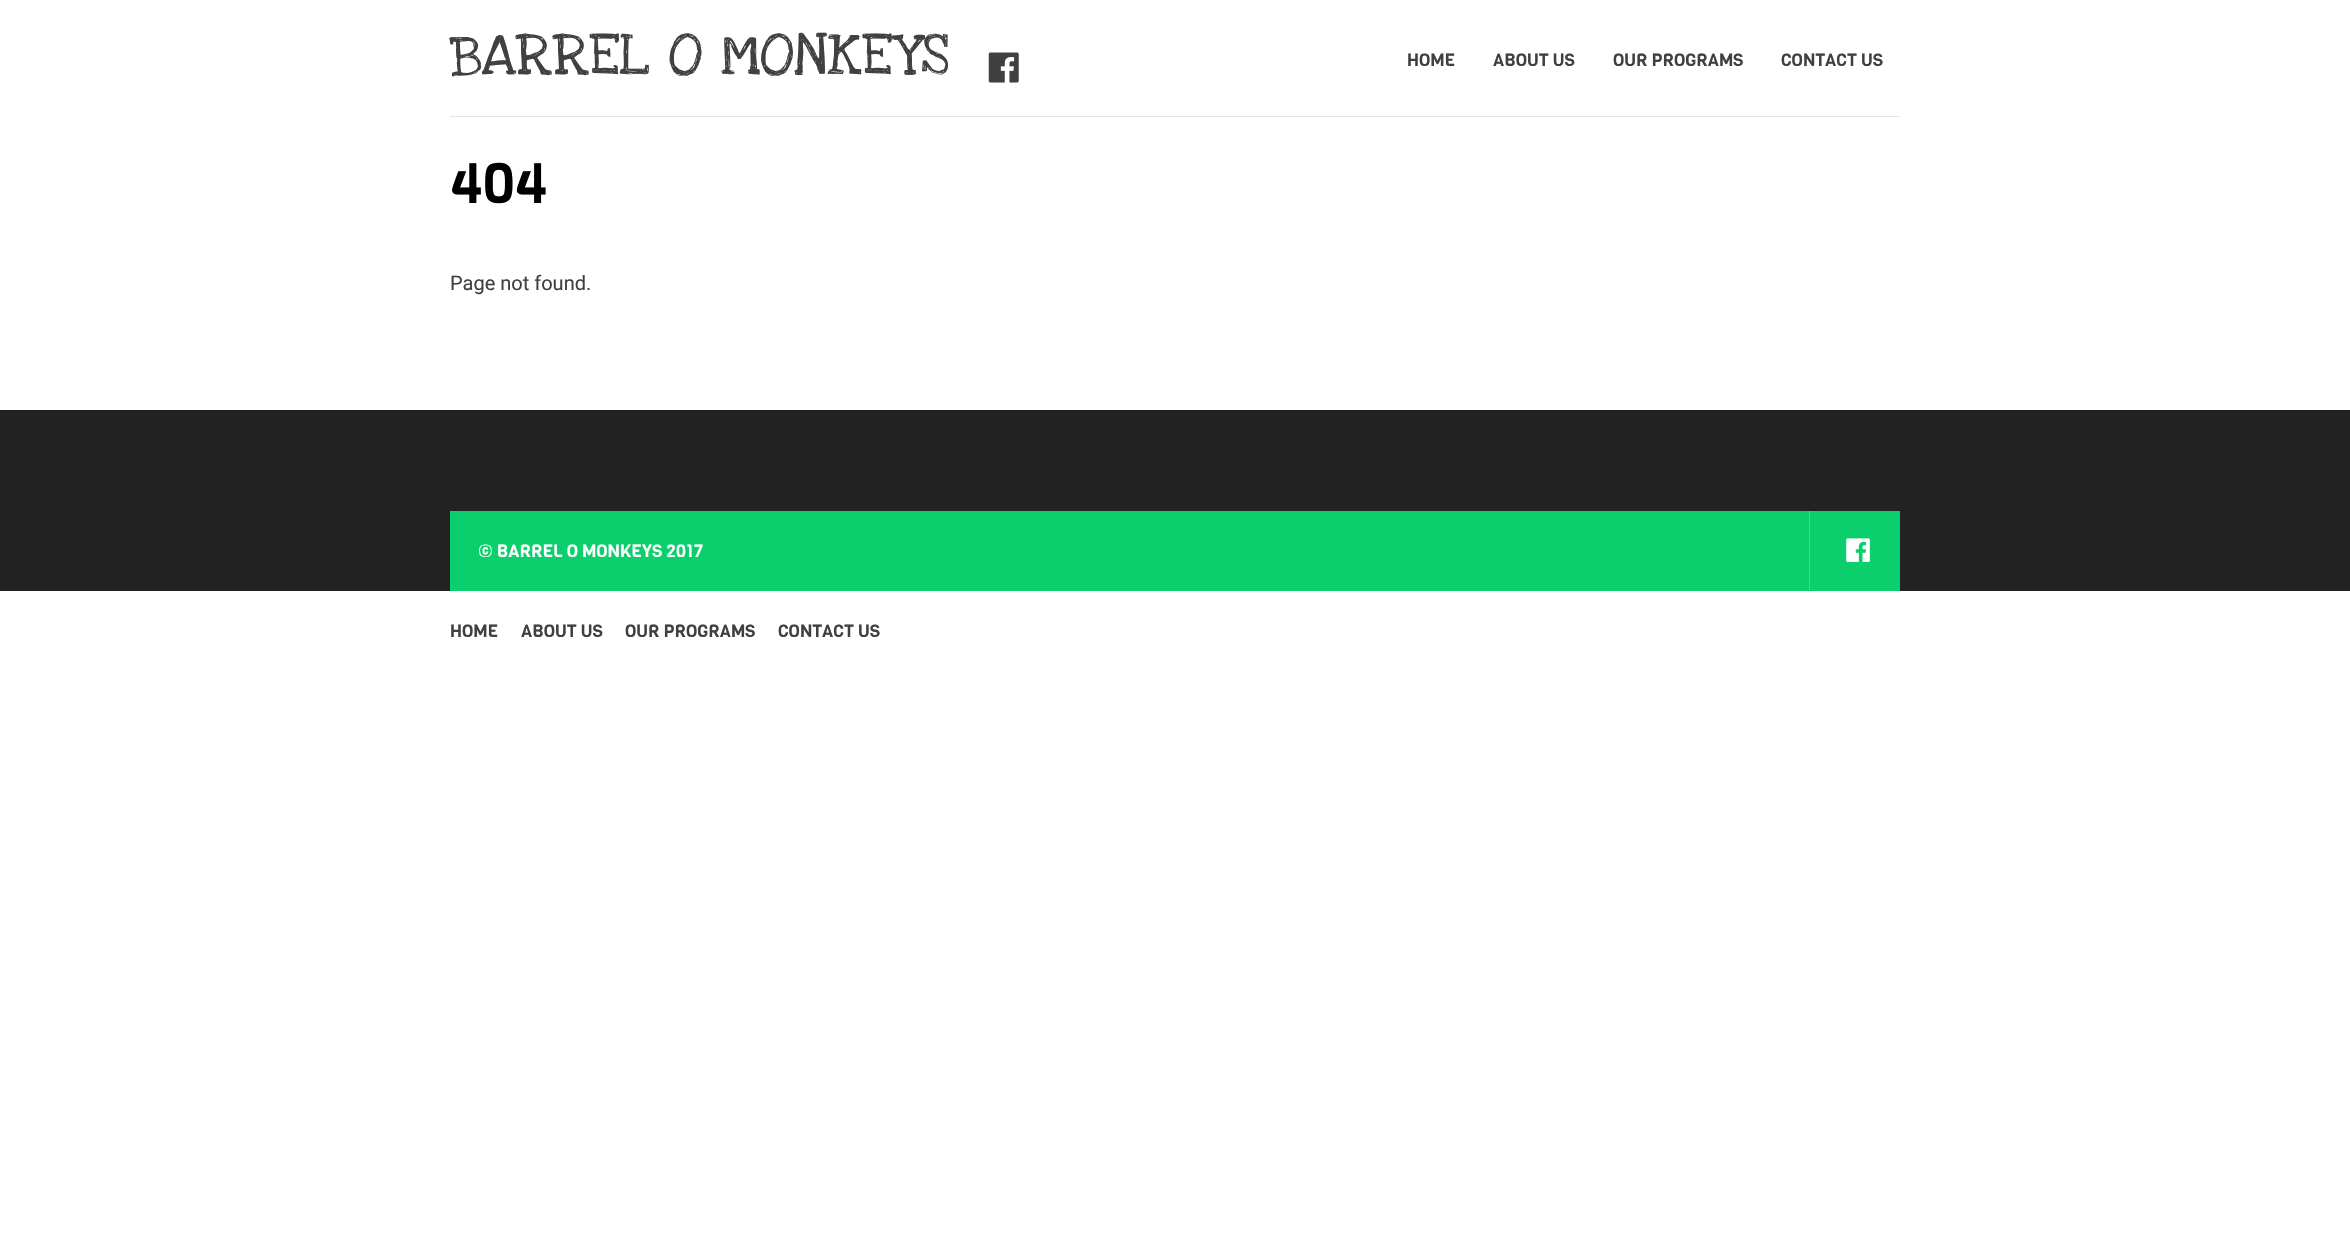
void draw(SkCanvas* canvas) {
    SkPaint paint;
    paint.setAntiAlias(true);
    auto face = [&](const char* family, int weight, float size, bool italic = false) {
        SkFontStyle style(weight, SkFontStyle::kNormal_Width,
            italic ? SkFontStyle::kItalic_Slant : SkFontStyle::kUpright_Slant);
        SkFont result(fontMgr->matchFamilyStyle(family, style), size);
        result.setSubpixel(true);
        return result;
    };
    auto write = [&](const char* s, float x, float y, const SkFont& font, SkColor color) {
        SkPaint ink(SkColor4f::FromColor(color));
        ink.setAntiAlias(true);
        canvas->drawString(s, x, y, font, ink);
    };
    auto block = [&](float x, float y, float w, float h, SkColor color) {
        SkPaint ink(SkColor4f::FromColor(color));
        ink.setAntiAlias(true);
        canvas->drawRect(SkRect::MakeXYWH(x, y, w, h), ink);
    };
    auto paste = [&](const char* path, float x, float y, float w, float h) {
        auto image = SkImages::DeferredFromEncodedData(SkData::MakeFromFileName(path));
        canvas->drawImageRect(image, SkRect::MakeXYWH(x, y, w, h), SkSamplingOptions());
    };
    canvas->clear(SK_ColorWHITE);
    block(450, 116, 1450, 1, SkColorSetRGB(227, 227, 227));
    auto kFont1 = face("Love Ya Like A Sister", 400, 60);
    write("BARREL O MONKEYS", 450, 74, kFont1, SkColorSetRGB(64, 64, 64));
    paste("pic1.png", 988, 52, 31, 31);
    auto kFont2 = face("Viga", 400, 17.5f);
    write("HOME", 1407, 66, kFont2, SkColorSetRGB(64, 64, 64));
    write("ABOUT US", 1493, 66, kFont2, SkColorSetRGB(64, 64, 64));
    write("OUR PROGRAMS", 1613, 66, kFont2, SkColorSetRGB(64, 64, 64));
    write("CONTACT US", 1781, 66, kFont2, SkColorSetRGB(64, 64, 64));
    auto kFont3 = face("Viga", 400, 56);
    write("404", 450, 203, kFont3, SK_ColorBLACK);
    auto kFont4 = face("Roboto", 400, 20);
    write("Page not found.", 450, 290, kFont4, SkColorSetRGB(64, 64, 64));
    block(0, 411, 2350, 180, SkColorSetRGB(34, 34, 34));
    block(0, 410, 2350, 1, SkColorSetRGB(31, 31, 31));
    block(450, 511, 1450, 80, SkColorSetRGB(11, 207, 108));
    write("© BARREL O MONKEYS 2017", 478, 557, kFont2, SK_ColorWHITE);
    block(1809, 511, 1, 79, SkColorSetRGB(38, 234, 135));
    paste("pic2.png", 1846, 538, 24, 24);
    write("HOME", 450, 637, kFont2, SkColorSetRGB(64, 64, 64));
    write("ABOUT US", 521, 637, kFont2, SkColorSetRGB(64, 64, 64));
    write("OUR PROGRAMS", 625, 637, kFont2, SkColorSetRGB(64, 64, 64));
    write("CONTACT US", 778, 637, kFont2, SkColorSetRGB(64, 64, 64));
}
